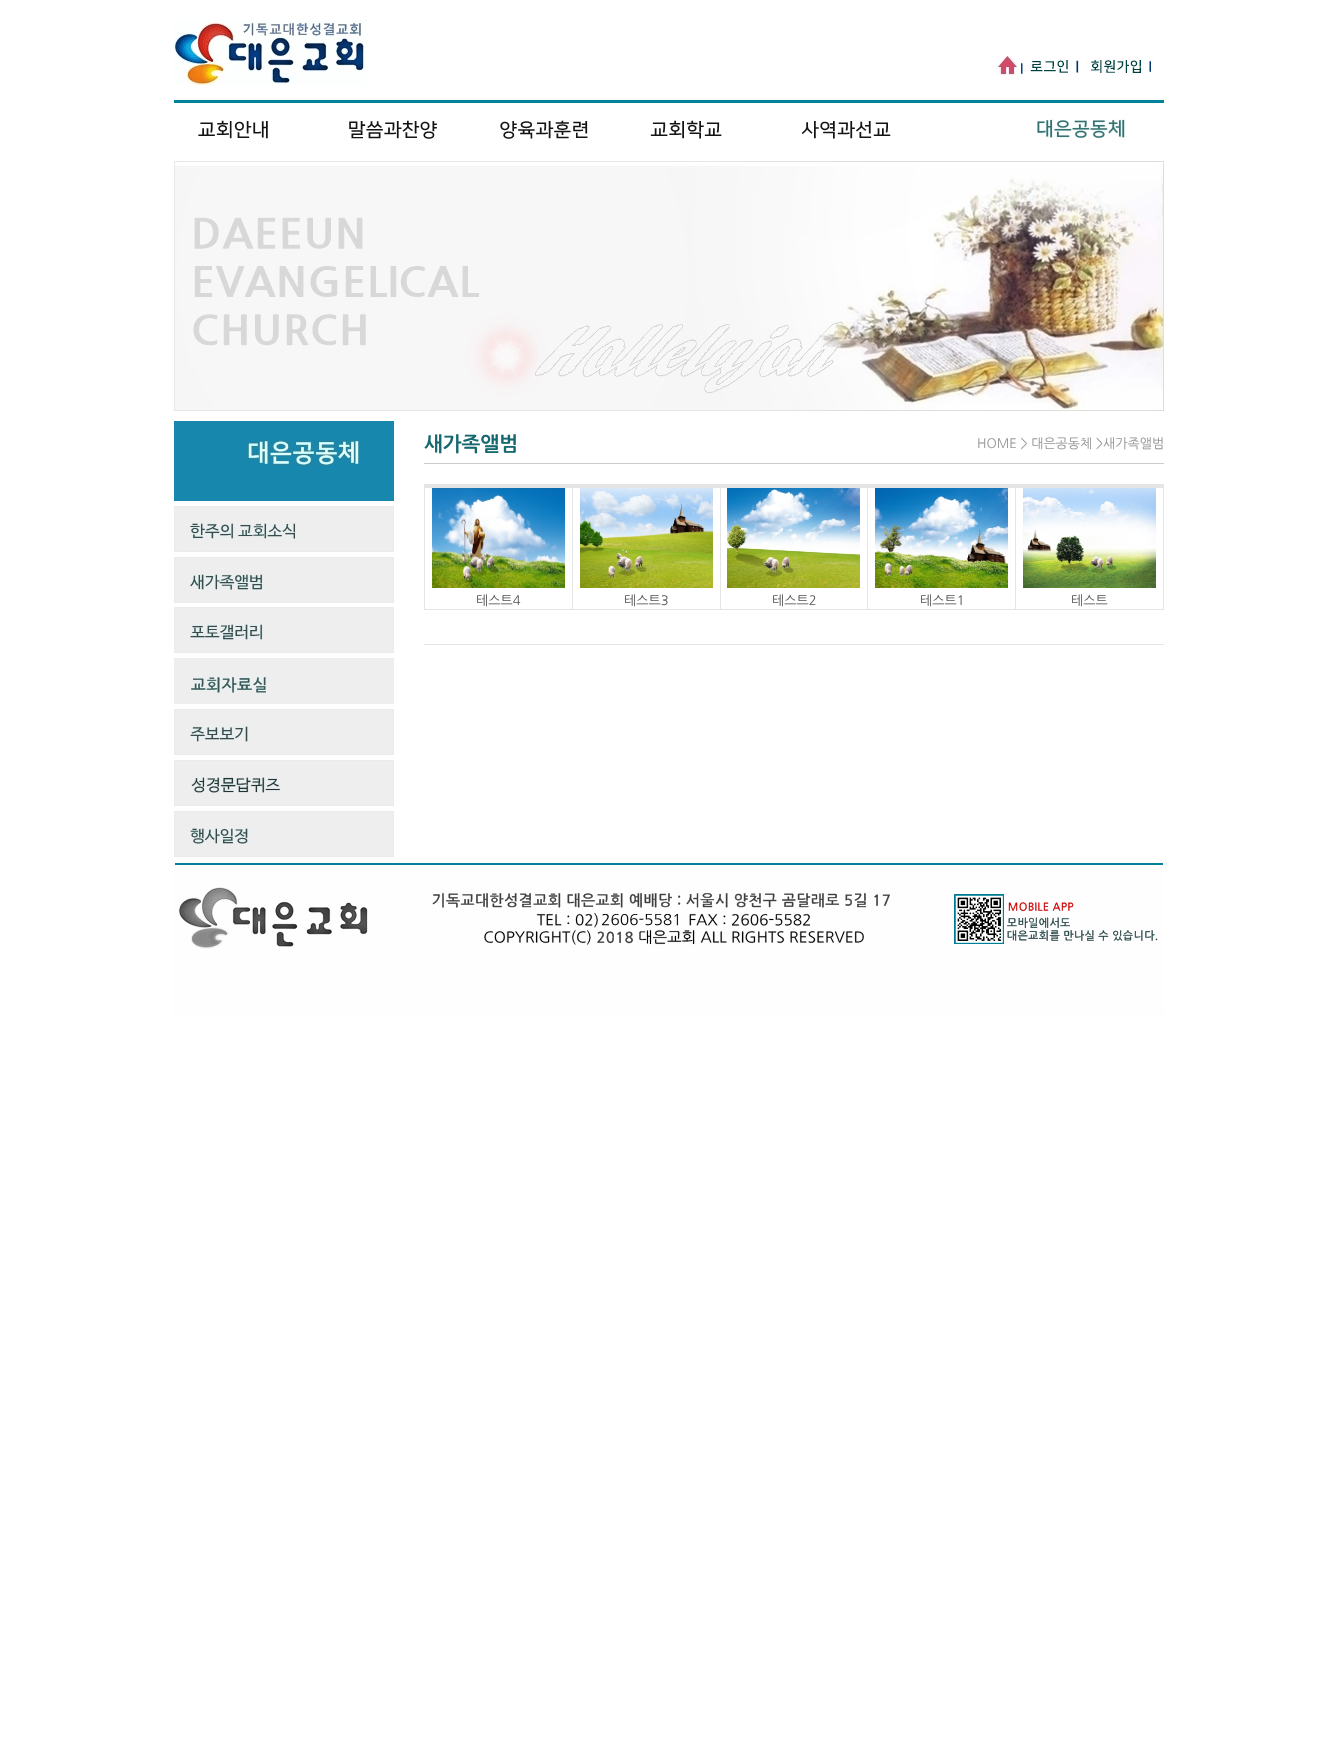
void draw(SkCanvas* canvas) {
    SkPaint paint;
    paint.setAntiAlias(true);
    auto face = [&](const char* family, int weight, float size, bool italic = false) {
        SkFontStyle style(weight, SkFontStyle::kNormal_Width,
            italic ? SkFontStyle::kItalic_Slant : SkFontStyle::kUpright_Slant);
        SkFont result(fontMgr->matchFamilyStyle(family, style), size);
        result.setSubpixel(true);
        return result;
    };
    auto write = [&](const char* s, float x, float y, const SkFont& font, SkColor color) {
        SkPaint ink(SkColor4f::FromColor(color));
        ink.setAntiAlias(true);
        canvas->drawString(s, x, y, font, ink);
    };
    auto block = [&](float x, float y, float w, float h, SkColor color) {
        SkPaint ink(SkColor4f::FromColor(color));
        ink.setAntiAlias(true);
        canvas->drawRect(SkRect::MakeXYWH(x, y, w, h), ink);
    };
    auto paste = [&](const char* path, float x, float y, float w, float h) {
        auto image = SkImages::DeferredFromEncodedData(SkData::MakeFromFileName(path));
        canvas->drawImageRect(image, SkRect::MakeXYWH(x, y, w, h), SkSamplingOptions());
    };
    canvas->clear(SK_ColorWHITE);
    paste("pic1.png", 174, 20, 193, 65);
    paste("pic2.png", 994, 55, 29, 21);
    paste("pic3.png", 1026, 55, 53, 18);
    paste("pic4.png", 1085, 55, 69, 18);
    block(174, 100, 990, 3, SkColorSetRGB(0, 130, 153));
    paste("pic5.png", 198, 120, 70, 19);
    paste("pic6.png", 349, 120, 88, 19);
    paste("pic7.png", 500, 120, 88, 19);
    paste("pic8.png", 650, 120, 72, 19);
    paste("pic9.png", 801, 121, 90, 18);
    paste("pic10.png", 1037, 119, 88, 20);
    paste("pic11.png", 174, 161, 990, 250);
    paste("pic12.png", 174, 421, 220, 80);
    paste("pic13.png", 174, 506, 220, 46);
    paste("pic14.png", 174, 557, 220, 46);
    paste("pic15.png", 174, 607, 220, 46);
    paste("pic16.png", 174, 658, 220, 46);
    paste("pic17.png", 174, 709, 220, 46);
    paste("pic18.png", 174, 760, 220, 46);
    paste("pic19.png", 174, 811, 220, 46);
    auto kFont1 = face("NanumGothic", 700, 20);
    write("새가족앨범", 424, 451, kFont1, SkColorSetRGB(22, 104, 112));
    auto kFont2 = face("NanumGothic", 400, 13);
    write("HOME > 대은공동체 >새가족앨범", 977, 448, kFont2, SkColorSetRGB(153, 153, 153));
    block(424, 463, 740, 1, SkColorSetRGB(204, 204, 204));
    block(424, 484, 740, 4, SkColorSetRGB(229, 229, 229));
    block(1163, 487, 1, 123, SkColorSetRGB(229, 229, 229));
    block(424, 609, 740, 1, SkColorSetRGB(229, 229, 229));
    block(424, 487, 1, 123, SkColorSetRGB(229, 229, 229));
    paste("pic20.png", 432, 488, 133, 100);
    write("테스트4", 476, 605, kFont2, SkColorSetRGB(93, 93, 93));
    block(572, 487, 1, 123, SkColorSetRGB(229, 229, 229));
    paste("pic21.png", 580, 488, 133, 100);
    write("테스트3", 624, 605, kFont2, SkColorSetRGB(93, 93, 93));
    block(720, 487, 1, 123, SkColorSetRGB(229, 229, 229));
    paste("pic22.png", 727, 488, 133, 100);
    write("테스트2", 772, 605, kFont2, SkColorSetRGB(93, 93, 93));
    block(867, 487, 1, 123, SkColorSetRGB(229, 229, 229));
    paste("pic23.png", 875, 488, 133, 100);
    write("테스트1", 920, 605, kFont2, SkColorSetRGB(93, 93, 93));
    block(1015, 487, 1, 123, SkColorSetRGB(229, 229, 229));
    paste("pic24.png", 1023, 488, 133, 100);
    write("테스트", 1071, 605, kFont2, SkColorSetRGB(93, 93, 93));
    block(424, 644, 740, 1, SkColorSetRGB(229, 229, 229));
    paste("pic25.png", 174, 862, 990, 153);
}
